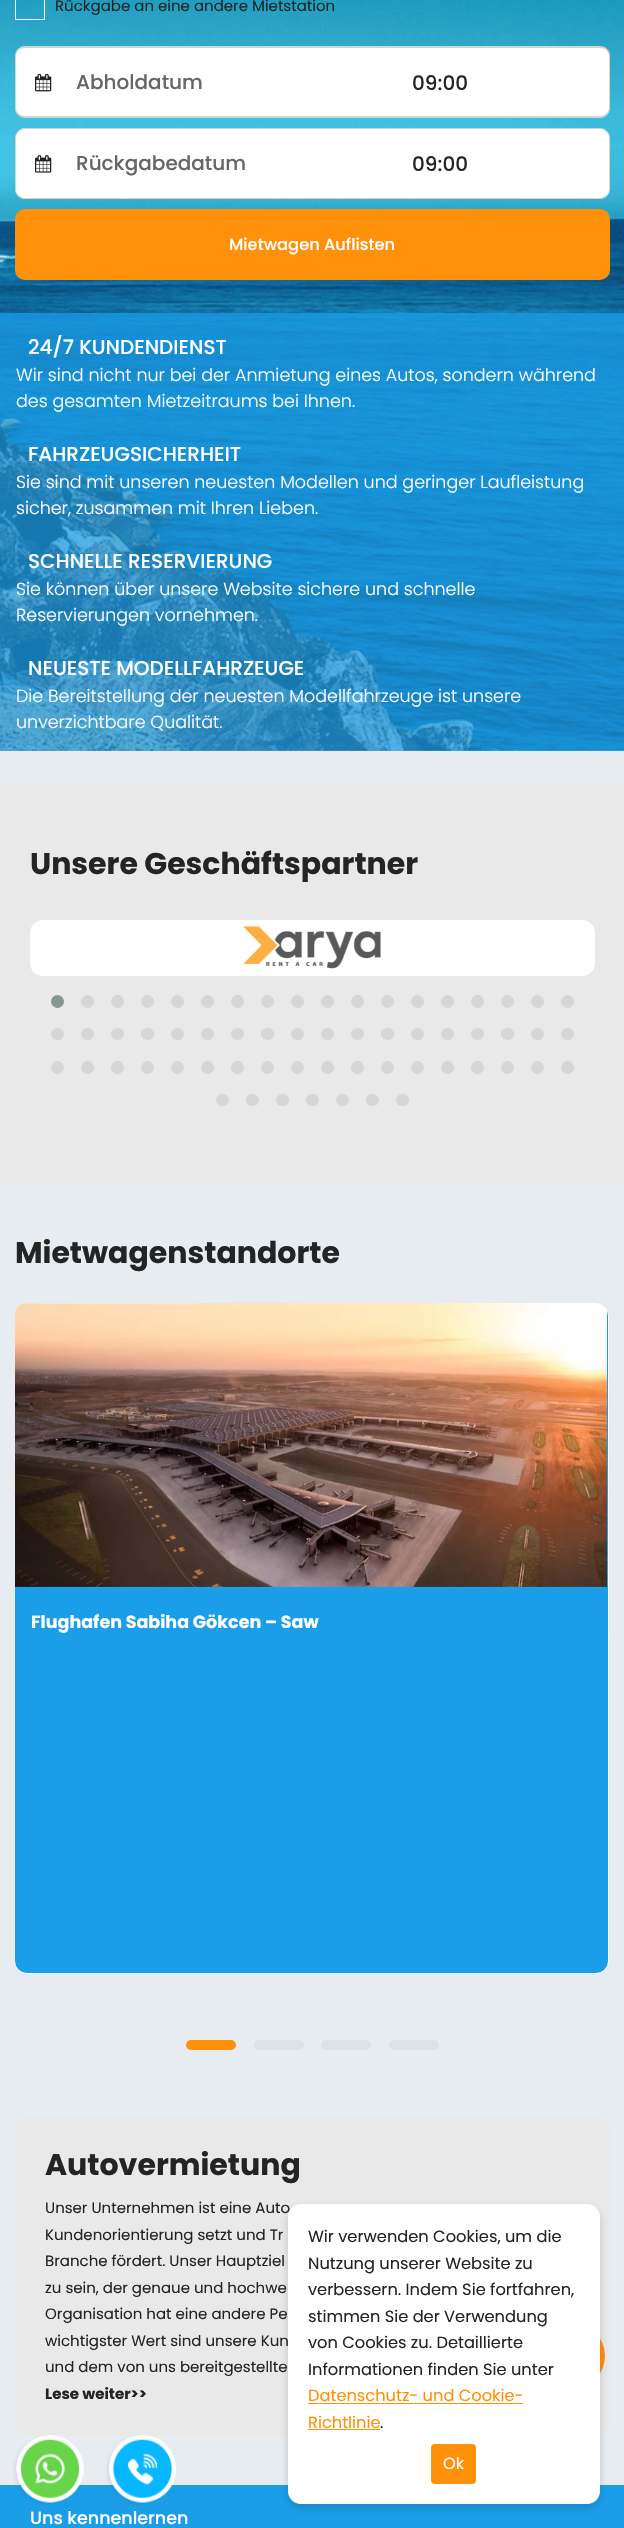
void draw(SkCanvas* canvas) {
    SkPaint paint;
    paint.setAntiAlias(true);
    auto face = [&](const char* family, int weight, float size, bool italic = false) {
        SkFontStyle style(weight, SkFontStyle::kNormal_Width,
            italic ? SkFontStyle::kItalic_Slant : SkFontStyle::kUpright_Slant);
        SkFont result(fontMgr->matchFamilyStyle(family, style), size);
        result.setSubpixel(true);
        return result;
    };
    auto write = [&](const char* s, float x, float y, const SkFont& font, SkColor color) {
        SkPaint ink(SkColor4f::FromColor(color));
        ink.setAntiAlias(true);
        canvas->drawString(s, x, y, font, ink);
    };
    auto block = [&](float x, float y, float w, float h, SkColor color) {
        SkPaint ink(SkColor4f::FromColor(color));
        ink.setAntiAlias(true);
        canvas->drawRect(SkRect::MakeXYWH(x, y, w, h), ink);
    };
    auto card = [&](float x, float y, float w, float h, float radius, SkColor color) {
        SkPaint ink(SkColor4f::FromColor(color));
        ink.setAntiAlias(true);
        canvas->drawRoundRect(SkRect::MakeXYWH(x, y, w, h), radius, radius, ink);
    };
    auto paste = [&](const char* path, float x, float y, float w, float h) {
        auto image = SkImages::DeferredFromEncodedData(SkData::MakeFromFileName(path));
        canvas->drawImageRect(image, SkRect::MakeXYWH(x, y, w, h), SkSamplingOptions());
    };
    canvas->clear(SkColorSetRGB(230, 236, 240));
    paste("pic1.png", 0, 0, 624, 751);
    paint.setStyle(SkPaint::kStroke_Style);
    paint.setStrokeWidth(1);
    paint.setColor(SK_ColorWHITE);
    canvas->drawRect(SkRect::MakeXYWH(15.5f, -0.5f, 29, 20), paint);
    auto kFont1 = face("Poppins", 400, 15);
    write("Rückgabe an eine andere Mietstation", 55, 11, kFont1, SkColorSetRGB(35, 36, 35));
    paint.setStyle(SkPaint::kFill_Style);
    canvas->drawPath(SkPathBuilder().moveTo(25, 46).lineTo(401, 46).lineTo(401, 118).lineTo(25, 118).cubicTo(19.5f, 118, 15, 113.5f, 15, 108).lineTo(15, 56).cubicTo(15, 50.5f, 19.5f, 46, 25, 46).close().detach(), paint);
    paint.setColor(SkColorSetARGB(51, 35, 36, 35));
    canvas->drawPath(SkPathBuilder(SkPathFillType::kEvenOdd).moveTo(25, 46).lineTo(401, 46).lineTo(401, 118).lineTo(25, 118).cubicTo(19, 118, 15, 113, 15, 108).lineTo(15, 56).cubicTo(15, 51, 19, 46, 25, 46).close().moveTo(25, 48).lineTo(401, 48).lineTo(401, 116).lineTo(25, 116).cubicTo(20, 116, 16, 112, 16, 108).lineTo(16, 56).cubicTo(16, 51, 20, 48, 25, 48).close().detach(), paint);
    paste("pic2.png", 35, 73, 17, 19);
    auto kFont2 = face("Poppins", 500, 20);
    write("Abholdatum", 76, 89, kFont2, SkColorSetRGB(101, 102, 101));
    paint.setColor(SK_ColorWHITE);
    canvas->drawPath(SkPathBuilder().moveTo(401, 46).lineTo(600, 46).cubicTo(605.5f, 46, 610, 50.5f, 610, 56).lineTo(610, 108).cubicTo(610, 113.5f, 605.5f, 118, 600, 118).lineTo(401, 118).close().detach(), paint);
    paint.setColor(SkColorSetARGB(51, 35, 36, 35));
    canvas->drawPath(SkPathBuilder(SkPathFillType::kEvenOdd).moveTo(401, 46).lineTo(600, 46).cubicTo(606, 46, 610, 51, 610, 56).lineTo(610, 108).cubicTo(610, 113, 606, 118, 600, 118).lineTo(401, 118).close().moveTo(401, 48).lineTo(600, 48).cubicTo(605, 48, 609, 51, 609, 56).lineTo(609, 108).cubicTo(609, 112, 605, 116, 600, 116).lineTo(401, 116).close().detach(), paint);
    write("09:00", 412, 90, kFont2, SkColorSetRGB(35, 36, 35));
    paint.setColor(SK_ColorWHITE);
    canvas->drawPath(SkPathBuilder().moveTo(25, 128).lineTo(401, 128).lineTo(401, 199).lineTo(25, 199).cubicTo(19.5f, 199, 15, 194.5f, 15, 189).lineTo(15, 138).cubicTo(15, 132.5f, 19.5f, 128, 25, 128).close().detach(), paint);
    paint.setColor(SkColorSetARGB(51, 35, 36, 35));
    canvas->drawPath(SkPathBuilder(SkPathFillType::kEvenOdd).moveTo(25, 128).lineTo(401, 128).lineTo(401, 199).lineTo(25, 199).cubicTo(19, 199, 15, 194, 15, 189).lineTo(15, 138).cubicTo(15, 132, 19, 128, 25, 128).close().moveTo(25, 129).lineTo(401, 129).lineTo(401, 198).lineTo(25, 198).cubicTo(20, 198, 16, 194, 16, 189).lineTo(16, 138).cubicTo(16, 133, 20, 129, 25, 129).close().detach(), paint);
    paste("pic3.png", 35, 155, 17, 18);
    write("Rückgabedatum", 76, 170, kFont2, SkColorSetRGB(101, 102, 101));
    paint.setColor(SK_ColorWHITE);
    canvas->drawPath(SkPathBuilder().moveTo(401, 128).lineTo(600, 128).cubicTo(605.5f, 128, 610, 132.5f, 610, 138).lineTo(610, 189).cubicTo(610, 194.5f, 605.5f, 199, 600, 199).lineTo(401, 199).close().detach(), paint);
    paint.setColor(SkColorSetARGB(51, 35, 36, 35));
    canvas->drawPath(SkPathBuilder(SkPathFillType::kEvenOdd).moveTo(401, 128).lineTo(600, 128).cubicTo(606, 128, 610, 132, 610, 138).lineTo(610, 189).cubicTo(610, 194, 606, 199, 600, 199).lineTo(401, 199).close().moveTo(401, 129).lineTo(600, 129).cubicTo(605, 129, 609, 133, 609, 138).lineTo(609, 189).cubicTo(609, 194, 605, 198, 600, 198).lineTo(401, 198).close().detach(), paint);
    write("09:00", 412, 171, kFont2, SkColorSetRGB(35, 36, 35));
    card(15, 209, 595, 71, 10, SkColorSetRGB(255, 144, 10));
    auto kFont3 = face("Poppins", 500, 16.25f);
    write("Mietwagen Auflisten", 229, 250, kFont3, SK_ColorWHITE);
    block(0, 313, 624, 438, SkColorSetARGB(191, 26, 158, 232));
    write("24/7 KUNDENDIENST", 28, 354, kFont2, SK_ColorWHITE);
    auto kFont4 = face("Poppins", 300, 17.5f);
    write("Wir sind nicht nur bei der Anmietung eines Autos, sondern während", 16, 381, kFont4, SK_ColorWHITE);
    write("des gesamten Mietzeitraums bei Ihnen.", 16, 407, kFont4, SK_ColorWHITE);
    write("FAHRZEUGSICHERHEIT", 28, 461, kFont2, SK_ColorWHITE);
    write("Sie sind mit unseren neuesten Modellen und geringer Laufleistung", 16, 488, kFont4, SK_ColorWHITE);
    write("sicher, zusammen mit Ihren Lieben.", 16, 514, kFont4, SK_ColorWHITE);
    write("SCHNELLE RESERVIERUNG", 28, 568, kFont2, SK_ColorWHITE);
    write("Sie können über unsere Website sichere und schnelle", 16, 595, kFont4, SK_ColorWHITE);
    write("Reservierungen vornehmen.", 16, 621, kFont4, SK_ColorWHITE);
    write("NEUESTE MODELLFAHRZEUGE", 28, 675, kFont2, SK_ColorWHITE);
    write("Die Bereitstellung der neuesten Modellfahrzeuge ist unsere", 16, 702, kFont4, SK_ColorWHITE);
    write("unverzichtbare Qualität.", 16, 728, kFont4, SK_ColorWHITE);
    block(0, 784, 624, 399, SkColorSetRGB(233, 233, 233));
    auto kFont5 = face("Poppins", 700, 30);
    write("Unsere Geschäftspartner", 30, 874, kFont5, SkColorSetRGB(35, 36, 35));
    card(30, 920, 565, 56, 13, SK_ColorWHITE);
    paste("pic4.png", 243, 926, 138, 43);
    paint.setColor(SkColorSetRGB(134, 151, 145));
    canvas->drawCircle(57.5f, 1001.5f, 6.5f, paint);
    paint.setColor(SkColorSetRGB(214, 214, 214));
    canvas->drawCircle(87.5f, 1001.5f, 6.5f, paint);
    canvas->drawCircle(117.5f, 1001.5f, 6.5f, paint);
    canvas->drawCircle(147.5f, 1001.5f, 6.5f, paint);
    canvas->drawCircle(177.5f, 1001.5f, 6.5f, paint);
    canvas->drawCircle(207.5f, 1001.5f, 6.5f, paint);
    canvas->drawCircle(237.5f, 1001.5f, 6.5f, paint);
    canvas->drawCircle(267.5f, 1001.5f, 6.5f, paint);
    canvas->drawCircle(297.5f, 1001.5f, 6.5f, paint);
    canvas->drawCircle(327.5f, 1001.5f, 6.5f, paint);
    canvas->drawCircle(357.5f, 1001.5f, 6.5f, paint);
    canvas->drawCircle(387.5f, 1001.5f, 6.5f, paint);
    canvas->drawCircle(417.5f, 1001.5f, 6.5f, paint);
    canvas->drawCircle(447.5f, 1001.5f, 6.5f, paint);
    canvas->drawCircle(477.5f, 1001.5f, 6.5f, paint);
    canvas->drawCircle(507.5f, 1001.5f, 6.5f, paint);
    canvas->drawCircle(537.5f, 1001.5f, 6.5f, paint);
    canvas->drawCircle(567.5f, 1001.5f, 6.5f, paint);
    card(51, 1028, 13, 12, 6, SkColorSetRGB(214, 214, 214));
    card(81, 1028, 13, 12, 6, SkColorSetRGB(214, 214, 214));
    card(111, 1028, 13, 12, 6, SkColorSetRGB(214, 214, 214));
    card(141, 1028, 13, 12, 6, SkColorSetRGB(214, 214, 214));
    card(171, 1028, 13, 12, 6, SkColorSetRGB(214, 214, 214));
    card(201, 1028, 13, 12, 6, SkColorSetRGB(214, 214, 214));
    card(231, 1028, 13, 12, 6, SkColorSetRGB(214, 214, 214));
    card(261, 1028, 13, 12, 6, SkColorSetRGB(214, 214, 214));
    card(291, 1028, 13, 12, 6, SkColorSetRGB(214, 214, 214));
    card(321, 1028, 13, 12, 6, SkColorSetRGB(214, 214, 214));
    card(351, 1028, 13, 12, 6, SkColorSetRGB(214, 214, 214));
    card(381, 1028, 13, 12, 6, SkColorSetRGB(214, 214, 214));
    card(411, 1028, 13, 12, 6, SkColorSetRGB(214, 214, 214));
    card(441, 1028, 13, 12, 6, SkColorSetRGB(214, 214, 214));
    card(471, 1028, 13, 12, 6, SkColorSetRGB(214, 214, 214));
    card(501, 1028, 13, 12, 6, SkColorSetRGB(214, 214, 214));
    card(531, 1028, 13, 12, 6, SkColorSetRGB(214, 214, 214));
    card(561, 1028, 13, 12, 6, SkColorSetRGB(214, 214, 214));
    canvas->drawCircle(57.5f, 1067.5f, 6.5f, paint);
    canvas->drawCircle(87.5f, 1067.5f, 6.5f, paint);
    canvas->drawCircle(117.5f, 1067.5f, 6.5f, paint);
    canvas->drawCircle(147.5f, 1067.5f, 6.5f, paint);
    canvas->drawCircle(177.5f, 1067.5f, 6.5f, paint);
    canvas->drawCircle(207.5f, 1067.5f, 6.5f, paint);
    canvas->drawCircle(237.5f, 1067.5f, 6.5f, paint);
    canvas->drawCircle(267.5f, 1067.5f, 6.5f, paint);
    canvas->drawCircle(297.5f, 1067.5f, 6.5f, paint);
    canvas->drawCircle(327.5f, 1067.5f, 6.5f, paint);
    canvas->drawCircle(357.5f, 1067.5f, 6.5f, paint);
    canvas->drawCircle(387.5f, 1067.5f, 6.5f, paint);
    canvas->drawCircle(417.5f, 1067.5f, 6.5f, paint);
    canvas->drawCircle(447.5f, 1067.5f, 6.5f, paint);
    canvas->drawCircle(477.5f, 1067.5f, 6.5f, paint);
    canvas->drawCircle(507.5f, 1067.5f, 6.5f, paint);
    canvas->drawCircle(537.5f, 1067.5f, 6.5f, paint);
    canvas->drawCircle(567.5f, 1067.5f, 6.5f, paint);
    card(216, 1094, 13, 12, 6, SkColorSetRGB(214, 214, 214));
    card(246, 1094, 13, 12, 6, SkColorSetRGB(214, 214, 214));
    card(276, 1094, 13, 12, 6, SkColorSetRGB(214, 214, 214));
    card(306, 1094, 13, 12, 6, SkColorSetRGB(214, 214, 214));
    card(336, 1094, 13, 12, 6, SkColorSetRGB(214, 214, 214));
    card(366, 1094, 13, 12, 6, SkColorSetRGB(214, 214, 214));
    card(396, 1094, 13, 12, 6, SkColorSetRGB(214, 214, 214));
    write("Mietwagenstandorte", 15, 1263, kFont5, SkColorSetRGB(35, 36, 35));
    canvas->save();
    canvas->clipRect(SkRect::MakeXYWH(15, 1303, 595, 671));
    paint.setColor(SkColorSetRGB(26, 158, 232));
    canvas->drawRoundRect(SkRect::MakeXYWH(14.5f, 1303.5f, 594, 670), 12.5f, 12.5f, paint);
    paint.setStyle(SkPaint::kStroke_Style);
    paint.setColor(SK_ColorWHITE);
    canvas->drawRoundRect(SkRect::MakeXYWH(14.5f, 1303.5f, 594, 670), 12.5f, 12.5f, paint);
    canvas->restore();
    paste("pic5.png", 15, 1303, 592, 284);
    auto kFont6 = face("Poppins", 700, 17.5f);
    write("Flughafen Sabiha Gökcen – Saw", 31, 1628, kFont6, SK_ColorWHITE);
    card(186, 2040, 50, 10, 5, SkColorSetRGB(255, 144, 10));
    card(254, 2040, 50, 10, 5, SkColorSetRGB(220, 226, 230));
    card(321, 2040, 50, 10, 5, SkColorSetRGB(220, 226, 230));
    card(389, 2040, 50, 10, 5, SkColorSetRGB(220, 226, 230));
    card(15, 2118, 595, 318, 13, SkColorSetRGB(233, 233, 233));
    write("Autovermietung", 45, 2175, kFont5, SkColorSetRGB(35, 36, 35));
    write("Unser Unternehmen ist eine Auto", 45, 2213, kFont1, SkColorSetRGB(35, 36, 35));
    write("Kundenorientierung setzt und Tr", 45, 2240, kFont1, SkColorSetRGB(35, 36, 35));
    write("Branche fördert. Unser Hauptziel", 45, 2266, kFont1, SkColorSetRGB(35, 36, 35));
    write("zu sein, der genaue und hochwe", 45, 2293, kFont1, SkColorSetRGB(35, 36, 35));
    write("Organisation hat eine andere Pe", 45, 2319, kFont1, SkColorSetRGB(35, 36, 35));
    write("wichtigster Wert sind unsere Kun", 45, 2346, kFont1, SkColorSetRGB(35, 36, 35));
    write("und dem von uns bereitgestellte", 45, 2372, kFont1, SkColorSetRGB(35, 36, 35));
    auto kFont7 = face("Poppins", 700, 15);
    write("Lese weiter>>", 45, 2399, kFont7, SkColorSetRGB(35, 36, 35));
    paint.setStyle(SkPaint::kFill_Style);
    paint.setColor(SkColorSetRGB(255, 144, 10));
    canvas->drawCircle(572, 2356, 33, paint);
    block(0, 2485, 624, 43, SkColorSetRGB(26, 158, 232));
    paint.setColor(SkColorSetARGB(51, 35, 36, 35));
    paint.setMaskFilter(SkMaskFilter::MakeBlur(kNormal_SkBlurStyle, 4));
    canvas->drawRoundRect(SkRect::MakeXYWH(288, 2208, 312, 300), 13, 13, paint);
    paint.setMaskFilter(nullptr);
    card(288, 2204, 312, 300, 13, SK_ColorWHITE);
    auto kFont8 = face("Poppins", 400, 16.25f);
    write("Wir verwenden Cookies, um die", 308, 2242, kFont8, SkColorSetRGB(35, 36, 35));
    write("Nutzung unserer Website zu", 308, 2269, kFont8, SkColorSetRGB(35, 36, 35));
    write("verbessern. Indem Sie fortfahren,", 308, 2295, kFont8, SkColorSetRGB(35, 36, 35));
    write("stimmen Sie der Verwendung", 308, 2322, kFont8, SkColorSetRGB(35, 36, 35));
    write("von Cookies zu. Detaillierte", 308, 2348, kFont8, SkColorSetRGB(35, 36, 35));
    write("Informationen finden Sie unter", 308, 2375, kFont8, SkColorSetRGB(35, 36, 35));
    write("Datenschutz- und Cookie-", 308, 2401, kFont8, SkColorSetRGB(255, 144, 10));
    block(308, 2403, 215, 1, SkColorSetRGB(255, 144, 10));
    write("Richtlinie", 308, 2428, kFont8, SkColorSetRGB(255, 144, 10));
    block(308, 2429, 72, 1, SkColorSetRGB(255, 144, 10));
    write(".", 380, 2428, kFont8, SkColorSetRGB(35, 36, 35));
    card(431, 2444, 45, 40, 4, SkColorSetRGB(255, 144, 10));
    write("Ok", 443, 2469, kFont8, SK_ColorWHITE);
    paste("pic6.png", 13, 2435, 71, 70);
    paste("pic7.png", 106, 2435, 70, 70);
    auto kFont9 = face("Poppins", 500, 17.5f);
    write("Uns kennenlernen", 30, 2524, kFont9, SK_ColorWHITE);
}
